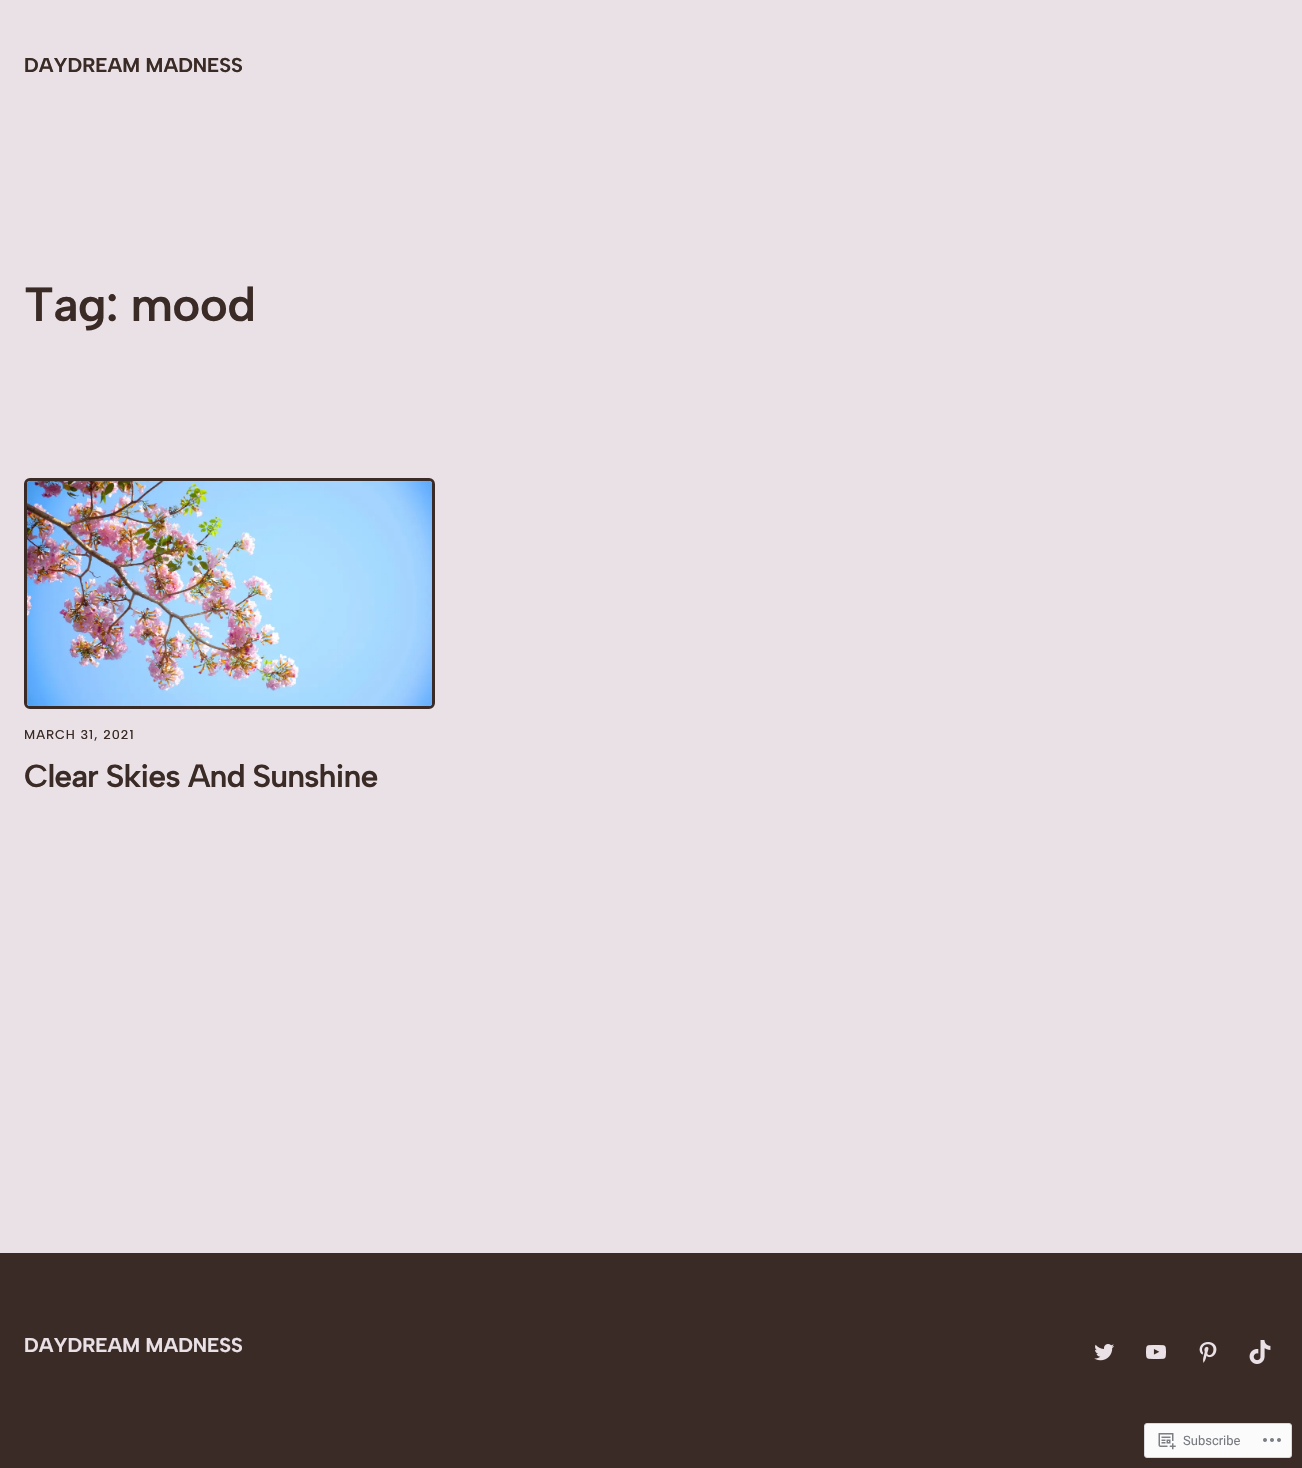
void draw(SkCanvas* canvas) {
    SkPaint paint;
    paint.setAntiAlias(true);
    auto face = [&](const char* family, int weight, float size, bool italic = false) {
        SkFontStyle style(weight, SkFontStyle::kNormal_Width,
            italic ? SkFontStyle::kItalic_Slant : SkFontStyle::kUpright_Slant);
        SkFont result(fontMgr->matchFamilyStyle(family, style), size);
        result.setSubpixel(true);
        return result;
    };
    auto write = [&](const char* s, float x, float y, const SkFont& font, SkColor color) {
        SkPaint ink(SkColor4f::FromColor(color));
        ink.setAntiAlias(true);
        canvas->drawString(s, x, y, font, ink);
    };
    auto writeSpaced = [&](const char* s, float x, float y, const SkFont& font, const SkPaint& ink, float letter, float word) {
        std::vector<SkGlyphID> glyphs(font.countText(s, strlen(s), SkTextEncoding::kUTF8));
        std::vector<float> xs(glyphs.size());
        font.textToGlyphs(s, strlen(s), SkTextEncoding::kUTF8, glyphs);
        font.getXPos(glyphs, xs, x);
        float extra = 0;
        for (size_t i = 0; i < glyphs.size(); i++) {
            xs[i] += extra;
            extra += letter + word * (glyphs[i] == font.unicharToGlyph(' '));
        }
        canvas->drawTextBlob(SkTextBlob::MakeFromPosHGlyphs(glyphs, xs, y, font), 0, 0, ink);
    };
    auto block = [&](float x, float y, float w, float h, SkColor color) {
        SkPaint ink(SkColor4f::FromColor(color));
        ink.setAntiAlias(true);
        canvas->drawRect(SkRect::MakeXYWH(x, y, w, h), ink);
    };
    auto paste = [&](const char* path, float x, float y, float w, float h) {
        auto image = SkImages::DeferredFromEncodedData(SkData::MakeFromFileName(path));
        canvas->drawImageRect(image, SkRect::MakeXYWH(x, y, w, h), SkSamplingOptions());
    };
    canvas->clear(SkColorSetRGB(233, 225, 229));
    auto kFont1 = face("Albert Sans", 700, 20);
    write("DAYDREAM MADNESS", 24, 72, kFont1, SkColorSetRGB(59, 43, 39));
    auto kFont2 = face("Albert Sans", 600, 48);
    paint.setColor(SkColorSetRGB(59, 43, 39));
    writeSpaced("Tag: mood", 24, 321, kFont2, paint, -0.75f, 0);
    paint.setStyle(SkPaint::kStroke_Style);
    paint.setStrokeWidth(3);
    canvas->drawRoundRect(SkRect::MakeXYWH(25.5f, 479.5f, 408, 228), 4.5f, 4.5f, paint);
    paste("pic1.png", 27, 481, 405, 225);
    auto kFont3 = face("Albert Sans", 500, 12.75f);
    paint.setStyle(SkPaint::kFill_Style);
    writeSpaced("MARCH 31, 2021", 24, 739, kFont3, paint, 1, 0);
    auto kFont4 = face("Albert Sans", 600, 32);
    writeSpaced("Clear Skies And Sunshine", 24, 787, kFont4, paint, -1, 0);
    block(0, 1253, 1302, 215, SkColorSetRGB(59, 43, 39));
    write("DAYDREAM MADNESS", 24, 1352, kFont1, SkColorSetRGB(233, 225, 229));
    paste("pic2.png", 1094, 1344, 20, 17);
    paste("pic3.png", 1146, 1345, 20, 14);
    paste("pic4.png", 1199, 1342, 18, 21);
    paste("pic5.png", 1249, 1340, 22, 24);
    paint.setColor(SkColorSetRGB(251, 251, 251));
    canvas->drawRoundRect(SkRect::MakeXYWH(1144.5f, 1423.5f, 147, 34), 2.5f, 2.5f, paint);
    paint.setStyle(SkPaint::kStroke_Style);
    paint.setStrokeWidth(1);
    paint.setColor(SkColorSetRGB(217, 216, 218));
    canvas->drawRoundRect(SkRect::MakeXYWH(1144.5f, 1423.5f, 147, 34), 2.5f, 2.5f, paint);
    paste("pic6.png", 1158, 1433, 18, 17);
    auto kFont5 = face("Roboto", 400, 13);
    write("Subscribe", 1183, 1445, kFont5, SkColorSetRGB(119, 122, 128));
    paste("pic7.png", 1263, 1438, 18, 4);
}
